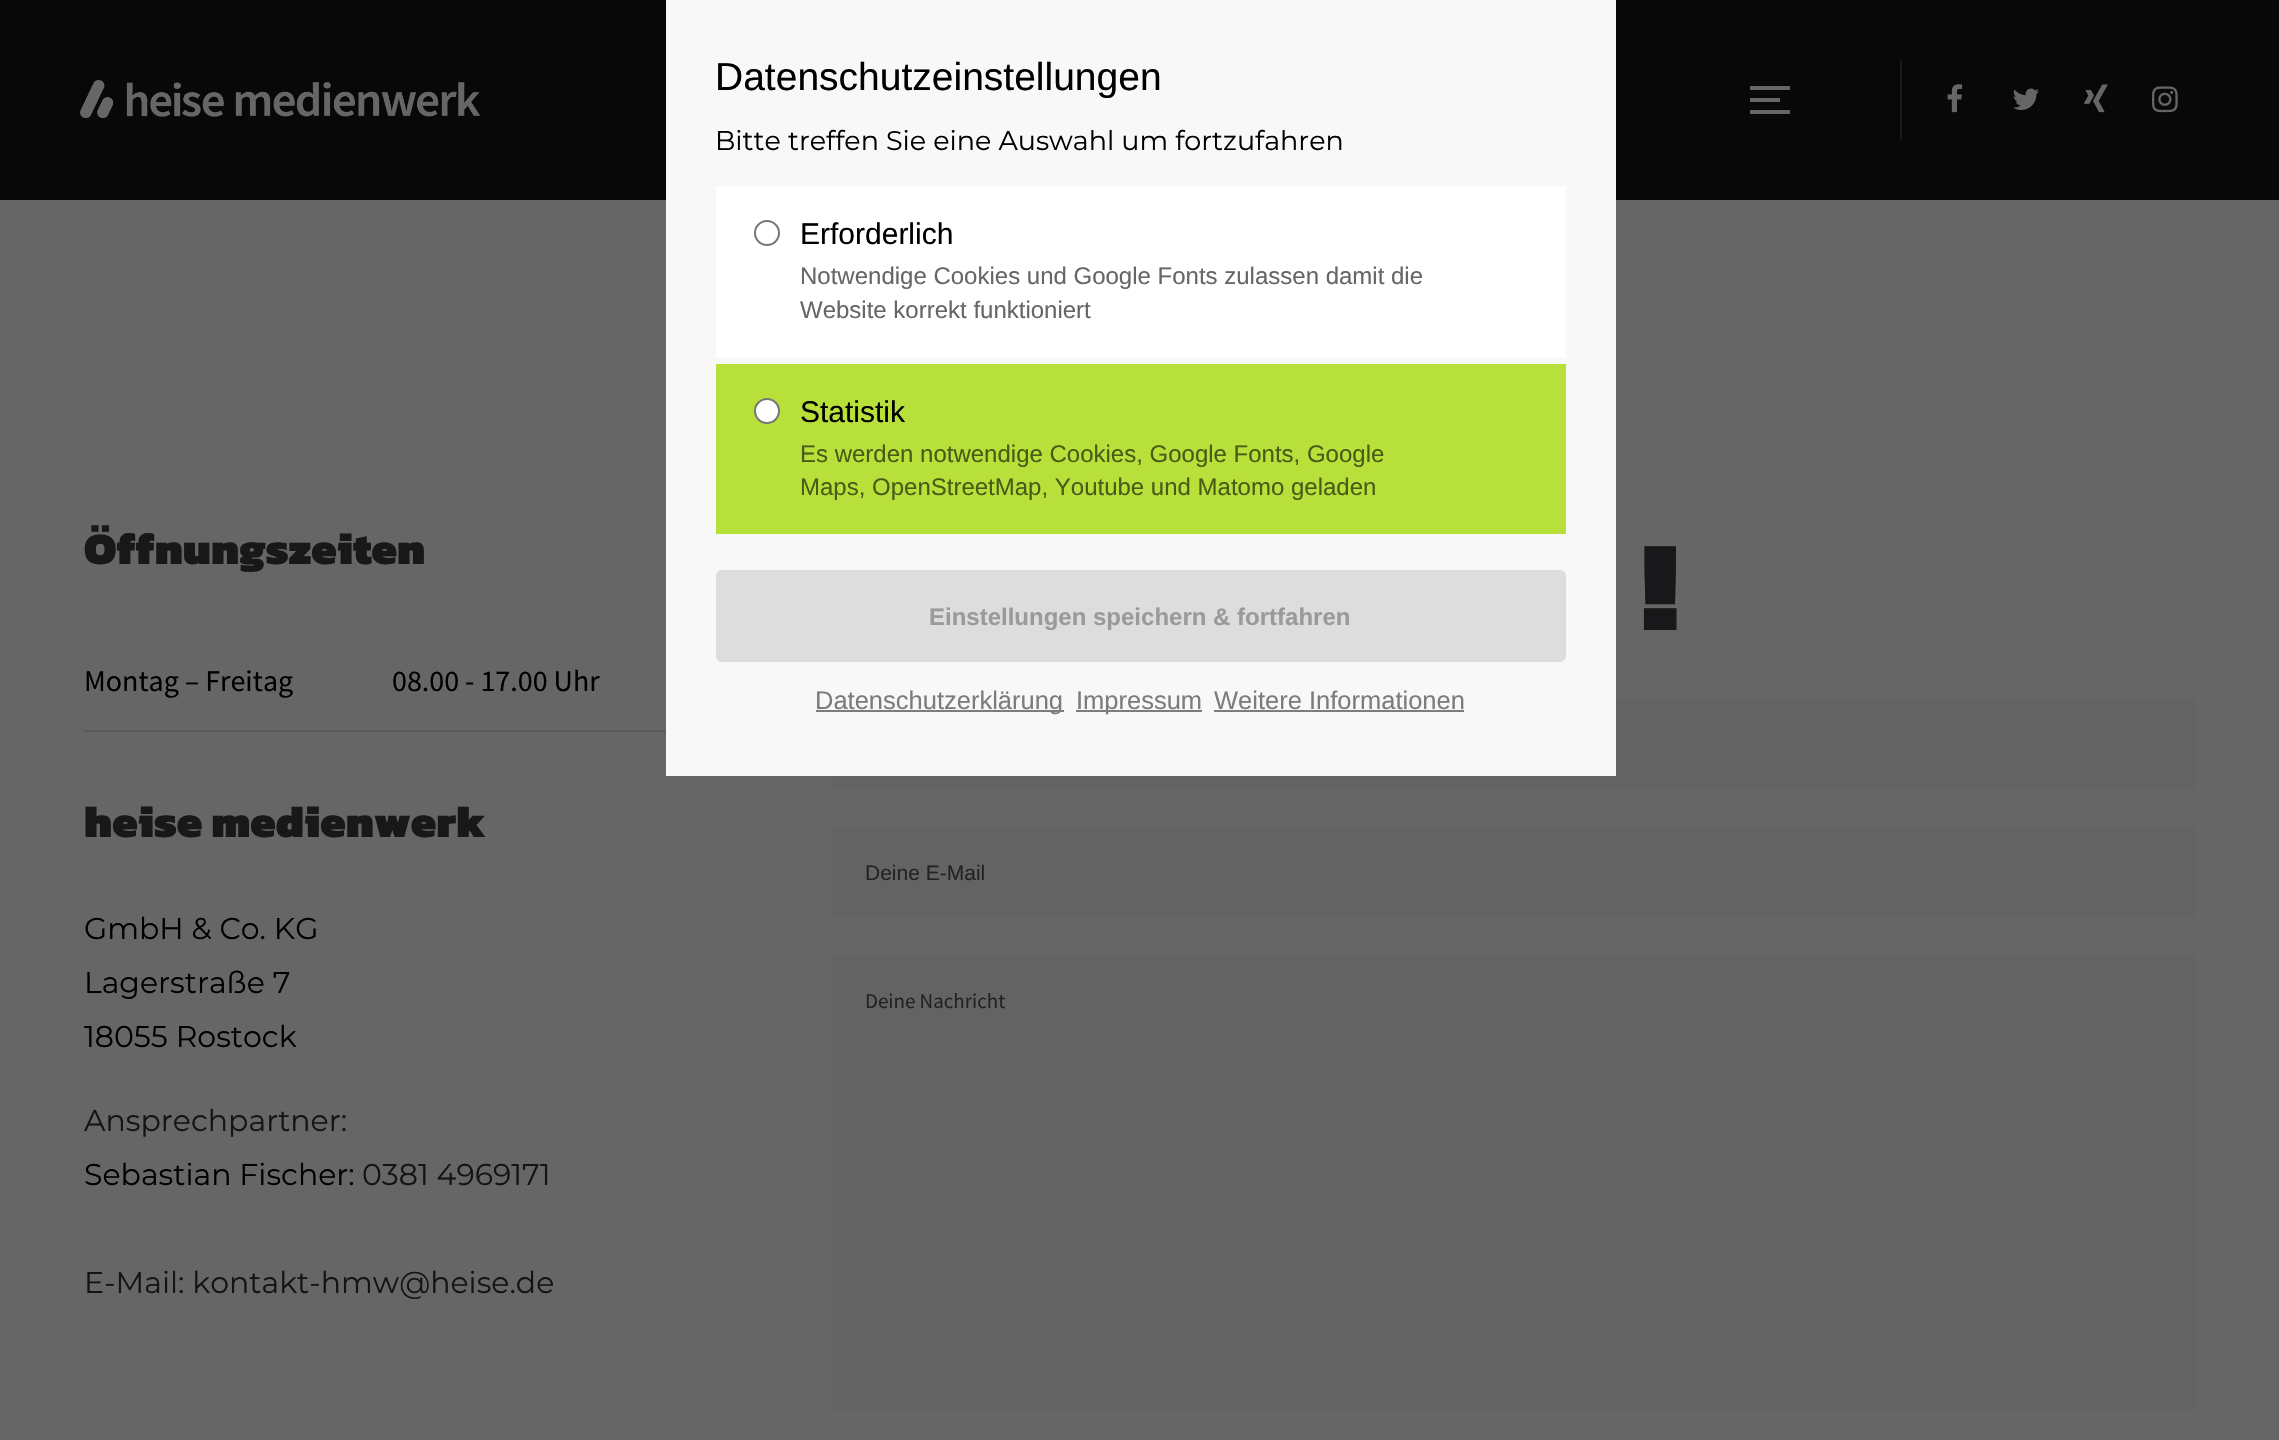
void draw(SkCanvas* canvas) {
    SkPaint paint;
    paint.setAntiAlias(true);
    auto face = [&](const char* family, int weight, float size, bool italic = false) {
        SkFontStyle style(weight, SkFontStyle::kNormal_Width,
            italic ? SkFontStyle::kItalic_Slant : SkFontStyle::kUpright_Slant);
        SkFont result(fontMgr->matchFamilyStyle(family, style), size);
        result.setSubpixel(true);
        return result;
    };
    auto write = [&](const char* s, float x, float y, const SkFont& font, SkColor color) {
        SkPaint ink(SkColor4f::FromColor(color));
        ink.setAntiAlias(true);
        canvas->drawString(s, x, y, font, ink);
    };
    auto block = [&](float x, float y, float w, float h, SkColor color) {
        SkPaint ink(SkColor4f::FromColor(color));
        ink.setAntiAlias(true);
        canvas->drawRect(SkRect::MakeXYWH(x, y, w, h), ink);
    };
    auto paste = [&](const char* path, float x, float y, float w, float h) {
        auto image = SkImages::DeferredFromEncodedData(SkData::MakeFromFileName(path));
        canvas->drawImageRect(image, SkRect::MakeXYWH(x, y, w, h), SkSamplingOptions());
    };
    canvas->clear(SkColorSetRGB(102, 102, 102));
    block(0, 0, 2279, 200, SkColorSetRGB(8, 8, 8));
    block(832, 700, 1364, 88, SkColorSetRGB(99, 99, 99));
    block(666, 0, 950, 776, SkColorSetRGB(248, 248, 248));
    auto kFont1 = face("Liberation Sans", 400, 39);
    write("Datenschutzeinstellungen", 715, 90, kFont1, SK_ColorBLACK);
    auto kFont2 = face("Montserrat", 400, 27);
    write("Bitte treffen Sie eine Auswahl um fortzufahren", 715, 150, kFont2, SK_ColorBLACK);
    block(716, 186, 850, 172, SK_ColorWHITE);
    paint.setStyle(SkPaint::kStroke_Style);
    paint.setStrokeWidth(2);
    paint.setColor(SkColorSetRGB(118, 118, 118));
    canvas->drawCircle(767, 233, 12, paint);
    auto kFont3 = face("Liberation Sans", 400, 30);
    write("Erforderlich", 800, 244, kFont3, SK_ColorBLACK);
    auto kFont4 = face("Liberation Sans", 400, 24);
    write("Notwendige Cookies und Google Fonts zulassen damit die", 800, 284, kFont4, SkColorSetRGB(102, 102, 102));
    write("Website korrekt funktioniert", 800, 318, kFont4, SkColorSetRGB(102, 102, 102));
    block(716, 364, 850, 170, SkColorSetRGB(184, 224, 58));
    paint.setStyle(SkPaint::kFill_Style);
    paint.setColor(SK_ColorWHITE);
    canvas->drawCircle(767, 411, 12, paint);
    paint.setStyle(SkPaint::kStroke_Style);
    paint.setColor(SkColorSetRGB(118, 118, 118));
    canvas->drawCircle(767, 411, 12, paint);
    write("Statistik", 800, 422, kFont3, SK_ColorBLACK);
    write("Es werden notwendige Cookies, Google Fonts, Google", 800, 462, kFont4, SkColorSetRGB(74, 90, 23));
    write("Maps, OpenStreetMap, Youtube und Matomo geladen", 800, 495, kFont4, SkColorSetRGB(74, 90, 23));
    paint.setStyle(SkPaint::kFill_Style);
    paint.setColor(SkColorSetRGB(221, 221, 221));
    canvas->drawRoundRect(SkRect::MakeXYWH(717, 571, 848, 90), 5, 5, paint);
    paint.setStyle(SkPaint::kStroke_Style);
    canvas->drawRoundRect(SkRect::MakeXYWH(717, 571, 848, 90), 5, 5, paint);
    auto kFont5 = face("Liberation Sans", 700, 24);
    write("Einstellungen speichern & fortfahren", 929, 625, kFont5, SkColorSetRGB(154, 154, 154));
    block(816, 710, 248, 2, SkColorSetRGB(124, 124, 124));
    auto kFont6 = face("Liberation Sans", 400, 25.5f);
    write("Datenschutzerklärung", 815, 709, kFont6, SkColorSetRGB(124, 124, 124));
    block(1076, 710, 126, 2, SkColorSetRGB(124, 124, 124));
    write("Impressum", 1076, 709, kFont6, SkColorSetRGB(124, 124, 124));
    write("Weitere Informationen", 1214, 709, kFont6, SkColorSetRGB(124, 124, 124));
    block(1214, 710, 250, 2, SkColorSetRGB(124, 124, 124));
    paste("pic1.png", 80, 80, 400, 38);
    block(1750, 98, 30, 4, SkColorSetRGB(102, 102, 102));
    block(1750, 86, 40, 4, SkColorSetRGB(102, 102, 102));
    block(1750, 110, 40, 4, SkColorSetRGB(102, 102, 102));
    block(1900, 60, 2, 80, SkColorSetRGB(26, 26, 26));
    paste("pic2.png", 1947, 84, 16, 29);
    paste("pic3.png", 2013, 88, 26, 22);
    paste("pic4.png", 2084, 84, 24, 29);
    paste("pic5.png", 2152, 86, 26, 27);
    auto kFont7 = face("Kanit", 900, 45);
    write("Öffnungszeiten", 84, 564, kFont7, SkColorSetRGB(24, 24, 26));
    block(84, 730, 582, 2, SkColorSetRGB(91, 91, 91));
    auto kFont8 = face("Source Sans Pro", 400, 30);
    write("Montag – Freitag", 84, 691, kFont8, SK_ColorBLACK);
    write("08.00 - 17.00 Uhr", 392, 691, kFont8, SK_ColorBLACK);
    write("heise medienwerk", 84, 837, kFont7, SkColorSetRGB(24, 24, 26));
    auto kFont9 = face("Montserrat", 400, 30);
    write("GmbH & Co. KG", 84, 939, kFont9, SK_ColorBLACK);
    write("Lagerstraße 7", 84, 993, kFont9, SK_ColorBLACK);
    write("18055 Rostock", 84, 1047, kFont9, SK_ColorBLACK);
    write("Ansprechpartner:", 84, 1131, kFont9, SkColorSetRGB(20, 20, 20));
    write("Sebastian Fischer:", 84, 1185, kFont9, SK_ColorBLACK);
    write("0381 4969171", 362, 1185, kFont9, SkColorSetRGB(20, 20, 20));
    write("E-Mail: kontakt-hmw@heise.de", 84, 1293, kFont9, SkColorSetRGB(20, 20, 20));
    auto kFont10 = face("Kanit", 900, 130);
    write("!", 1642, 630, kFont10, SkColorSetRGB(24, 24, 26));
    block(832, 828, 1364, 88, SkColorSetRGB(99, 99, 99));
    auto kFont11 = face("Liberation Sans", 400, 21);
    write("Deine E-Mail", 865, 880, kFont11, SkColorSetRGB(34, 34, 34));
    block(832, 956, 1364, 454, SkColorSetRGB(99, 99, 99));
    auto kFont12 = face("Source Sans Pro", 400, 21);
    write("Deine Nachricht", 865, 1008, kFont12, SkColorSetRGB(34, 34, 34));
}
